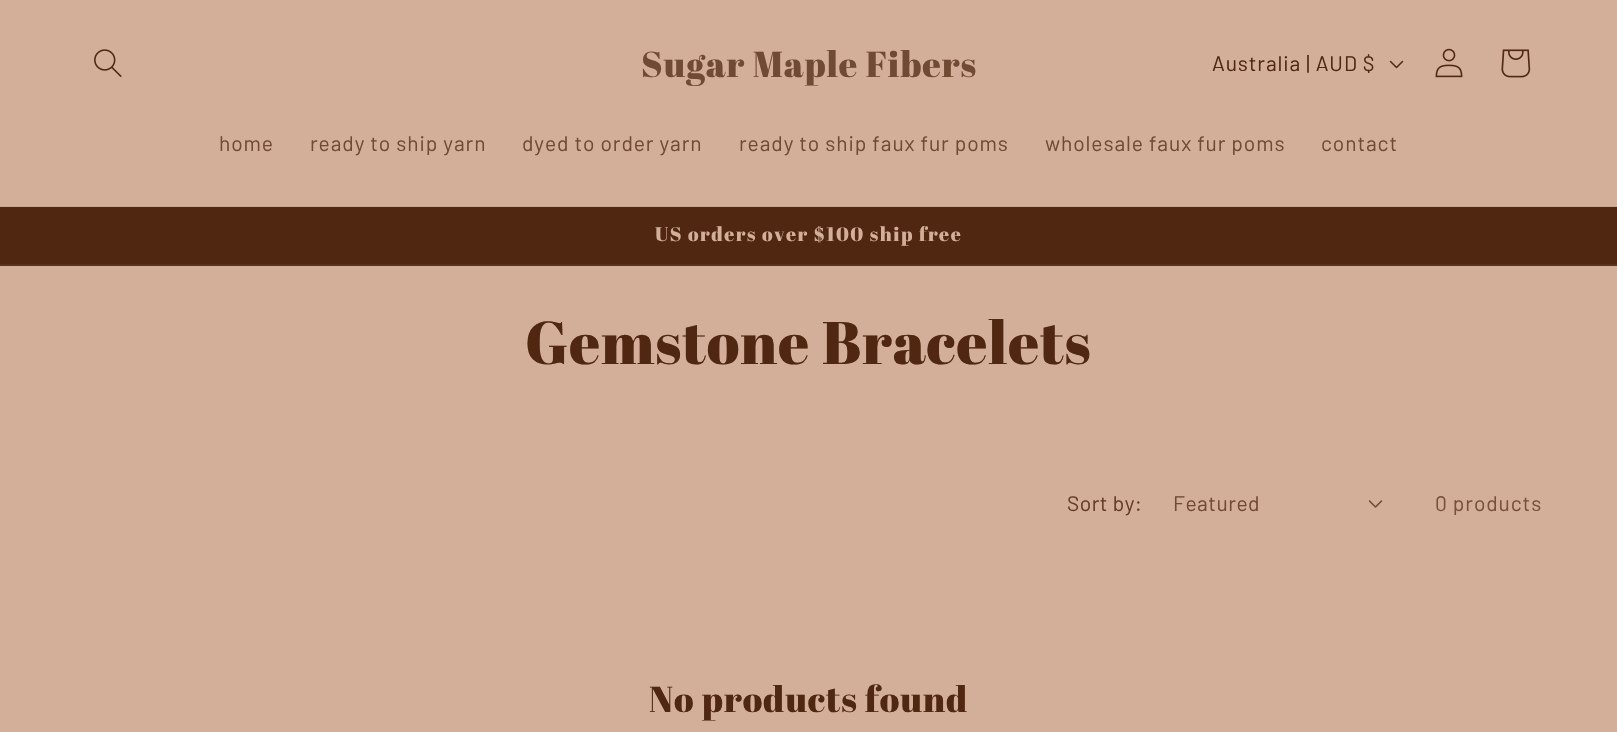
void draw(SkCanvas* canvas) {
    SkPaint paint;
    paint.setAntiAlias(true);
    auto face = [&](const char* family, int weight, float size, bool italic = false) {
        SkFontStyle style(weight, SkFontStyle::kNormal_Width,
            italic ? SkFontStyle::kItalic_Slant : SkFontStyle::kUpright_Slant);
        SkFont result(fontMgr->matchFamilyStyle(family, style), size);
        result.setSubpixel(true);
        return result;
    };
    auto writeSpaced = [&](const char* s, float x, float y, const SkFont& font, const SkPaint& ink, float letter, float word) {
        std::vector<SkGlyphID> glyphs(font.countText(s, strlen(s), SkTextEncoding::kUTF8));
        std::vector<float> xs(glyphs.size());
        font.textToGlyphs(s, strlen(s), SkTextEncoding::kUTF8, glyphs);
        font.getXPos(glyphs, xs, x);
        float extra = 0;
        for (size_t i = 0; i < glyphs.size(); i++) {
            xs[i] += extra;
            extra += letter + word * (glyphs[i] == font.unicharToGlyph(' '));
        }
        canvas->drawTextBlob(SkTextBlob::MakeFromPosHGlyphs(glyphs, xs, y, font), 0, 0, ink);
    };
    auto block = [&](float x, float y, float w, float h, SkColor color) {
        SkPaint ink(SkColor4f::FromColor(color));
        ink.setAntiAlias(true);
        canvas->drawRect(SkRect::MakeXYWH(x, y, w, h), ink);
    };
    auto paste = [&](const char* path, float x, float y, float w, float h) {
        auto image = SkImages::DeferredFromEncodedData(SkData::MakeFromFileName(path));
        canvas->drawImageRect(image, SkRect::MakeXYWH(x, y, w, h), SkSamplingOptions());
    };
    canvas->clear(SkColorSetRGB(80, 40, 17));
    block(0, 0, 1617, 206, SkColorSetRGB(211, 174, 153));
    block(0, 206, 1617, 1, SkColorSetRGB(201, 163, 142));
    paste("pic1.png", 94, 49, 28, 28);
    auto kFont1 = face("Abril Fatface", 400, 36);
    paint.setColor(SkColorSetRGB(113, 74, 51));
    writeSpaced("Sugar Maple Fibers", 641, 77, kFont1, paint, 0.9f, 0);
    auto kFont2 = face("Barlow", 400, 21);
    paint.setColor(SkColorSetRGB(80, 40, 17));
    writeSpaced("Australia | AUD $", 1212, 71, kFont2, paint, 0.9f, 0);
    paste("pic2.png", 1389, 60, 15, 9);
    paste("pic3.png", 1435, 48, 28, 30);
    paste("pic4.png", 1501, 49, 30, 29);
    paint.setColor(SkColorSetRGB(113, 74, 51));
    writeSpaced("home", 219, 151, kFont2, paint, 0.9f, 0);
    writeSpaced("ready to ship yarn", 310, 151, kFont2, paint, 0.9f, 0);
    writeSpaced("dyed to order yarn", 522, 151, kFont2, paint, 0.9f, 0);
    writeSpaced("ready to ship faux fur poms", 739, 151, kFont2, paint, 0.9f, 0);
    writeSpaced("wholesale faux fur poms", 1045, 151, kFont2, paint, 0.9f, 0);
    writeSpaced("contact", 1321, 151, kFont2, paint, 0.9f, 0);
    block(0, 264, 1617, 2, SkColorSetRGB(90, 51, 28));
    auto kFont3 = face("Abril Fatface", 400, 19.5f);
    paint.setColor(SkColorSetRGB(211, 174, 153));
    writeSpaced("US orders over $100 ship free", 655, 241, kFont3, paint, 1.5f, 0);
    block(0, 266, 1617, 466, SkColorSetRGB(211, 174, 153));
    auto kFont4 = face("Abril Fatface", 400, 60);
    paint.setColor(SkColorSetRGB(80, 40, 17));
    writeSpaced("Gemstone Bracelets", 525, 364, kFont4, paint, 0.9f, 0);
    paint.setColor(SkColorSetRGB(100, 60, 37));
    writeSpaced("Sort by:", 1067, 511, kFont2, paint, 0.5f, 0);
    paint.setColor(SkColorSetRGB(113, 74, 51));
    writeSpaced("Featured", 1173, 511, kFont2, paint, 0.5f, 0);
    paste("pic5.png", 1368, 500, 15, 8);
    paint.setColor(SkColorSetRGB(119, 80, 58));
    writeSpaced("0 products", 1435, 511, kFont2, paint, 0.9f, 0);
    paint.setColor(SkColorSetRGB(80, 40, 17));
    writeSpaced("No products found", 649, 712, kFont1, paint, 0.9f, 0);
}
